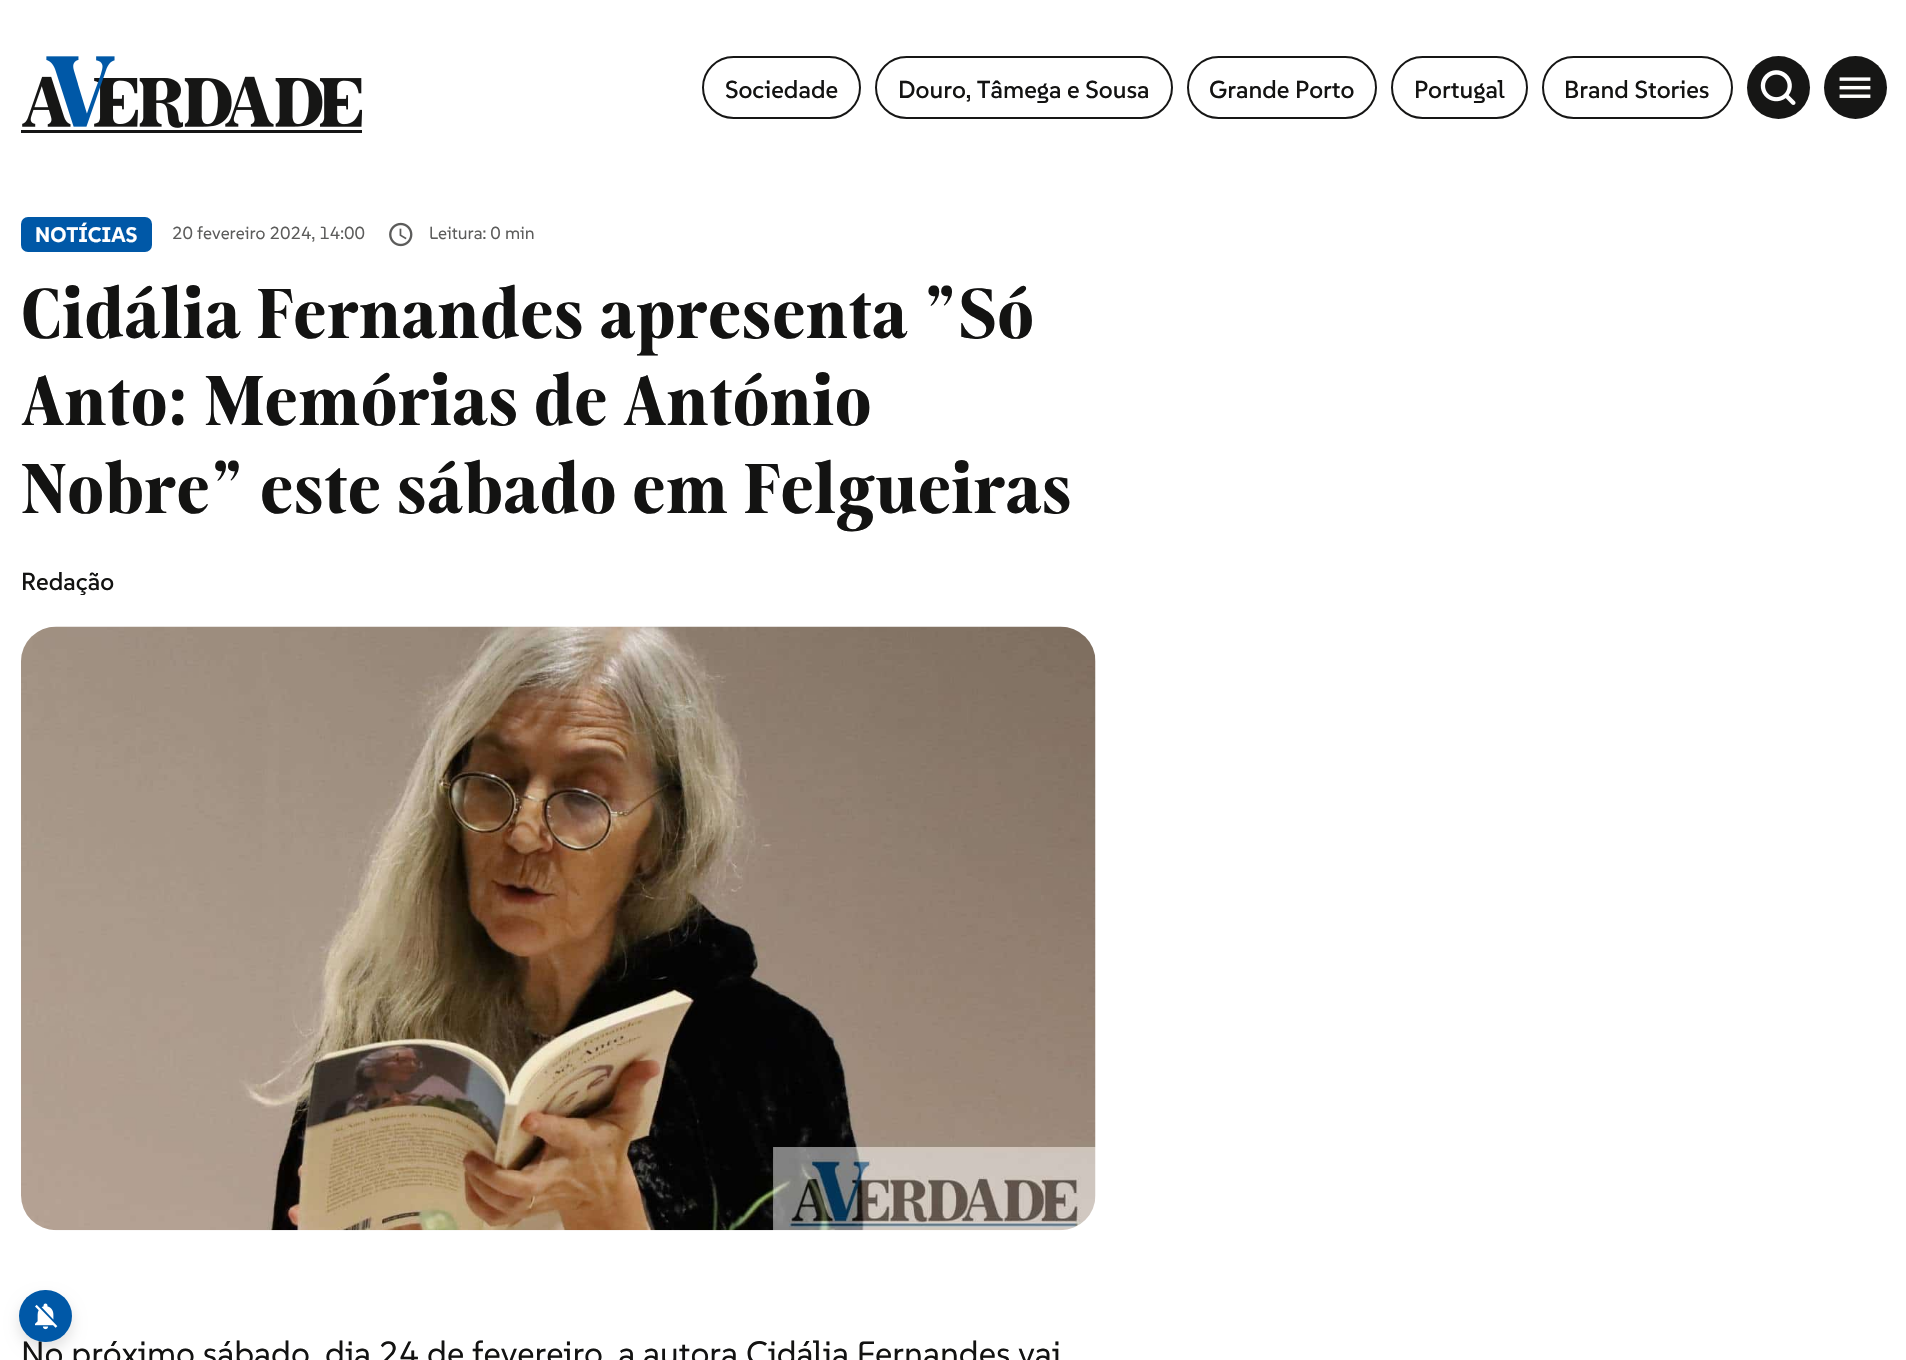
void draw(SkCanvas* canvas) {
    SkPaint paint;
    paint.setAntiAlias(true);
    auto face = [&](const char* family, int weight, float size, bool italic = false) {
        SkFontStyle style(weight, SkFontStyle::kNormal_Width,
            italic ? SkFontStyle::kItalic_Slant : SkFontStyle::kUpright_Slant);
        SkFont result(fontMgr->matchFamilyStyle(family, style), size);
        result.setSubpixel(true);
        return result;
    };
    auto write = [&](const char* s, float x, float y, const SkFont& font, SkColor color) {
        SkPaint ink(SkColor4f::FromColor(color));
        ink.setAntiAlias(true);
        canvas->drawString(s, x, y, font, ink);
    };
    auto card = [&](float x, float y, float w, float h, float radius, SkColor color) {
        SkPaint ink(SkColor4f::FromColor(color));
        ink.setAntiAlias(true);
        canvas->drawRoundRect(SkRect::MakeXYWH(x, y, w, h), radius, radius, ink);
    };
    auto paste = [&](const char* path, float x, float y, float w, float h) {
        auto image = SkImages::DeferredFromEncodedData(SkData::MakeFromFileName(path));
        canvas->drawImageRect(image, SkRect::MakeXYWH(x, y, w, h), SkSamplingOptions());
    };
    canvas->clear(SK_ColorWHITE);
    paste("pic1.png", 21, 56, 341, 77);
    paint.setStyle(SkPaint::kStroke_Style);
    paint.setStrokeWidth(2);
    paint.setColor(SkColorSetRGB(22, 22, 21));
    canvas->drawRoundRect(SkRect::MakeXYWH(703, 57, 157, 61), 30.5f, 30.5f, paint);
    auto kFont1 = face("SUSE", 500, 24.5f);
    write("Sociedade", 725, 98, kFont1, SkColorSetRGB(19, 19, 18));
    canvas->drawRoundRect(SkRect::MakeXYWH(876, 57, 296, 61), 30.5f, 30.5f, paint);
    write("Douro, Tâmega e Sousa", 898, 98, kFont1, SkColorSetRGB(19, 19, 18));
    canvas->drawRoundRect(SkRect::MakeXYWH(1188, 57, 188, 61), 30.5f, 30.5f, paint);
    write("Grande Porto", 1209, 98, kFont1, SkColorSetRGB(19, 19, 18));
    canvas->drawRoundRect(SkRect::MakeXYWH(1392, 57, 135, 61), 30.5f, 30.5f, paint);
    write("Portugal", 1414, 98, kFont1, SkColorSetRGB(19, 19, 18));
    canvas->drawRoundRect(SkRect::MakeXYWH(1543, 57, 189, 61), 30.5f, 30.5f, paint);
    write("Brand Stories", 1564, 98, kFont1, SkColorSetRGB(19, 19, 18));
    paint.setStyle(SkPaint::kFill_Style);
    canvas->drawCircle(1778.5f, 87.5f, 31.5f, paint);
    paste("pic2.png", 1760, 70, 36, 35);
    canvas->drawCircle(1855.5f, 87.5f, 31.5f, paint);
    paste("pic3.png", 1839, 77, 32, 21);
    card(21, 217, 131, 35, 7, SkColorSetRGB(0, 88, 167));
    auto kFont2 = face("SUSE", 700, 21);
    write("NOTÍCIAS", 35, 242, kFont2, SK_ColorWHITE);
    auto kFont3 = face("SUSE", 400, 17.5f);
    write("20 fevereiro 2024, 14:00", 172, 239, kFont3, SkColorSetRGB(92, 92, 91));
    paste("pic4.png", 389, 222, 24, 25);
    write("Leitura: 0 min", 429, 239, kFont3, SkColorSetRGB(92, 92, 91));
    auto kFont4 = face("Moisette", 700, 70);
    write("Cidália Fernandes apresenta \"Só", 21, 338, kFont4, SkColorSetRGB(19, 19, 18));
    write("Anto: Memórias de António", 21, 425, kFont4, SkColorSetRGB(19, 19, 18));
    write("Nobre\" este sábado em Felgueiras", 21, 513, kFont4, SkColorSetRGB(19, 19, 18));
    write("Redação", 21, 590, kFont1, SkColorSetRGB(19, 19, 18));
    paste("pic5.png", 21, 626, 1075, 605);
    auto kFont5 = face("SUSE", 400, 33.6f);
    write("No próximo sábado, dia 24 de fevereiro, a autora Cidália Fernandes vai", 21, 1365, kFont5, SkColorSetRGB(19, 19, 18));
    paint.setColor(SkColorSetARGB(31, 0, 0, 0));
    paint.setMaskFilter(SkMaskFilter::MakeBlur(kNormal_SkBlurStyle, 7));
    canvas->drawRoundRect(SkRect::MakeXYWH(19, 1297, 53, 52), 26, 26, paint);
    paint.setMaskFilter(nullptr);
    card(19, 1290, 53, 52, 26, SkColorSetRGB(0, 88, 167));
    paste("pic6.png", 35, 1303, 23, 27);
}
